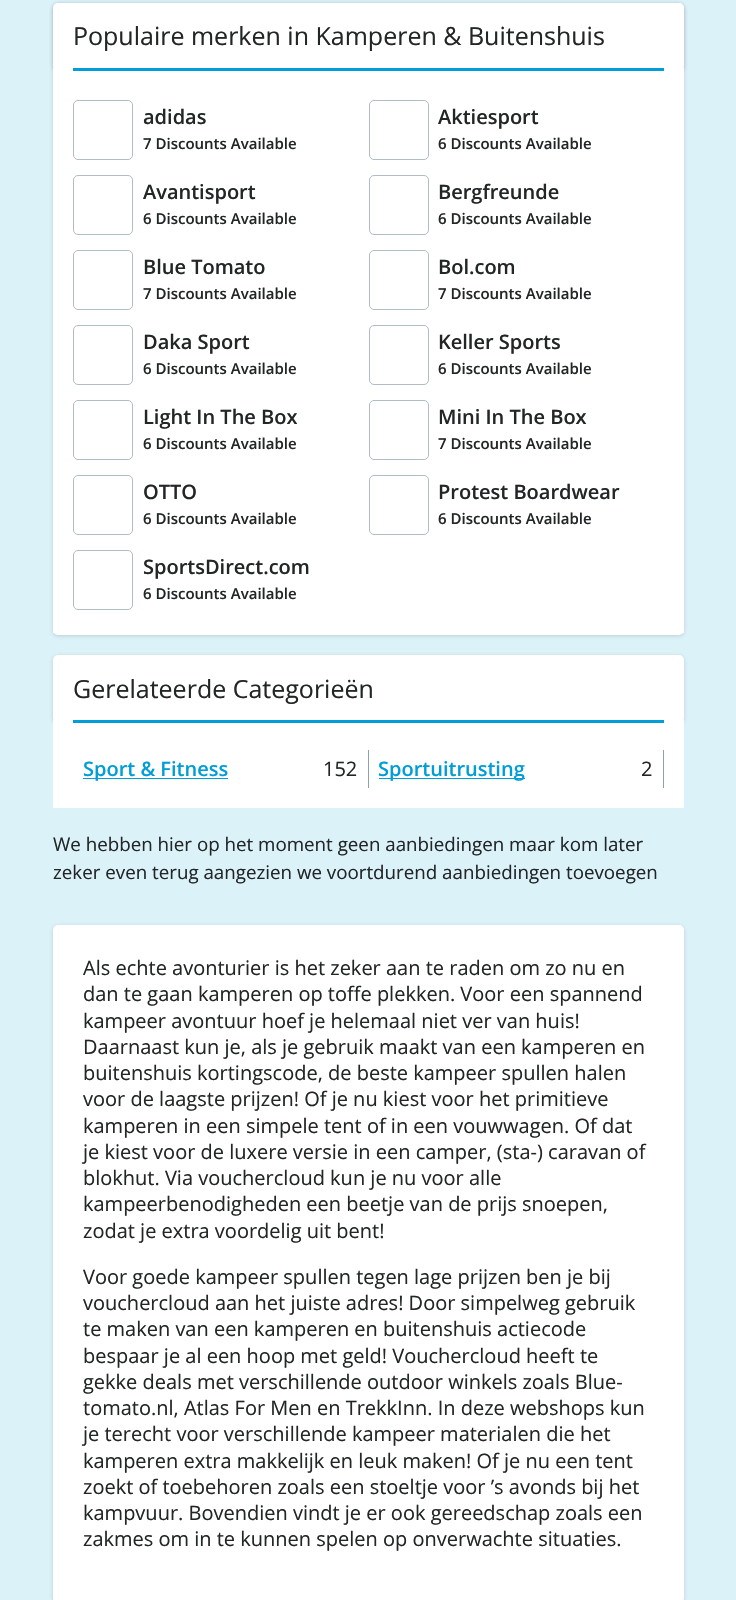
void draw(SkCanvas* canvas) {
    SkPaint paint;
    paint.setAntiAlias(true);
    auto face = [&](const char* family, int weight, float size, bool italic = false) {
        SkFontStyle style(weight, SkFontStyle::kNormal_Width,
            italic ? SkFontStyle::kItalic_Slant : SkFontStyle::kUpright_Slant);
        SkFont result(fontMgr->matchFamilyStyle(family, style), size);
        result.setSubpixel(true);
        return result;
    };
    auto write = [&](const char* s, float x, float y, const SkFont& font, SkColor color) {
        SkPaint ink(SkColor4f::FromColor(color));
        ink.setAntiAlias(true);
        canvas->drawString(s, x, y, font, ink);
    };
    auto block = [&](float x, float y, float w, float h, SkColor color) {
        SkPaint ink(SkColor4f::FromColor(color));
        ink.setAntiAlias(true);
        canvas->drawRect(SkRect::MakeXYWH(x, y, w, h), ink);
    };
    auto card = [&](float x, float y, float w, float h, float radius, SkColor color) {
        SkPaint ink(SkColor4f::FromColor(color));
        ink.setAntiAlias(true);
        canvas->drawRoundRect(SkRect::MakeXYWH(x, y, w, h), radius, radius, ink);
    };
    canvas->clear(SkColorSetRGB(220, 242, 249));
    paint.setColor(SkColorSetARGB(43, 16, 24, 40));
    paint.setMaskFilter(SkMaskFilter::MakeBlur(kNormal_SkBlurStyle, 2));
    canvas->drawRoundRect(SkRect::MakeXYWH(53, 4, 631, 632), 5, 5, paint);
    paint.setMaskFilter(nullptr);
    card(53, 3, 631, 632, 5, SK_ColorWHITE);
    paint.setMaskFilter(SkMaskFilter::MakeBlur(kNormal_SkBlurStyle, 2));
    canvas->drawRoundRect(SkRect::MakeXYWH(53, 4, 631, 67), 5, 5, paint);
    paint.setMaskFilter(nullptr);
    card(53, 3, 631, 67, 5, SK_ColorWHITE);
    auto kFont1 = face("Open Sans", 400, 25);
    write("Populaire merken in Kamperen & Buitenshuis", 73, 45, kFont1, SkColorSetRGB(34, 38, 39));
    block(53, 68, 631, 565, SK_ColorWHITE);
    block(73, 68, 591, 3, SkColorSetRGB(0, 158, 217));
    paint.setStyle(SkPaint::kStroke_Style);
    paint.setStrokeWidth(1);
    paint.setColor(SkColorSetRGB(175, 189, 196));
    canvas->drawRoundRect(SkRect::MakeXYWH(73.5f, 100.5f, 59, 59), 4.5f, 4.5f, paint);
    auto kFont2 = face("Open Sans", 600, 20);
    write("adidas", 143, 124, kFont2, SkColorSetRGB(34, 38, 39));
    auto kFont3 = face("Open Sans", 600, 15);
    write("7 Discounts Available", 143, 149, kFont3, SkColorSetRGB(34, 38, 39));
    canvas->drawRoundRect(SkRect::MakeXYWH(369.5f, 100.5f, 59, 59), 4.5f, 4.5f, paint);
    write("Aktiesport", 438, 124, kFont2, SkColorSetRGB(34, 38, 39));
    write("6 Discounts Available", 438, 149, kFont3, SkColorSetRGB(34, 38, 39));
    canvas->drawRoundRect(SkRect::MakeXYWH(73.5f, 175.5f, 59, 59), 4.5f, 4.5f, paint);
    write("Avantisport", 143, 199, kFont2, SkColorSetRGB(34, 38, 39));
    write("6 Discounts Available", 143, 224, kFont3, SkColorSetRGB(34, 38, 39));
    canvas->drawRoundRect(SkRect::MakeXYWH(369.5f, 175.5f, 59, 59), 4.5f, 4.5f, paint);
    write("Bergfreunde", 438, 199, kFont2, SkColorSetRGB(34, 38, 39));
    write("6 Discounts Available", 438, 224, kFont3, SkColorSetRGB(34, 38, 39));
    canvas->drawRoundRect(SkRect::MakeXYWH(73.5f, 250.5f, 59, 59), 4.5f, 4.5f, paint);
    write("Blue Tomato", 143, 274, kFont2, SkColorSetRGB(34, 38, 39));
    write("7 Discounts Available", 143, 299, kFont3, SkColorSetRGB(34, 38, 39));
    canvas->drawRoundRect(SkRect::MakeXYWH(369.5f, 250.5f, 59, 59), 4.5f, 4.5f, paint);
    write("Bol.com", 438, 274, kFont2, SkColorSetRGB(34, 38, 39));
    write("7 Discounts Available", 438, 299, kFont3, SkColorSetRGB(34, 38, 39));
    canvas->drawRoundRect(SkRect::MakeXYWH(73.5f, 325.5f, 59, 59), 4.5f, 4.5f, paint);
    write("Daka Sport", 143, 349, kFont2, SkColorSetRGB(34, 38, 39));
    write("6 Discounts Available", 143, 374, kFont3, SkColorSetRGB(34, 38, 39));
    canvas->drawRoundRect(SkRect::MakeXYWH(369.5f, 325.5f, 59, 59), 4.5f, 4.5f, paint);
    write("Keller Sports", 438, 349, kFont2, SkColorSetRGB(34, 38, 39));
    write("6 Discounts Available", 438, 374, kFont3, SkColorSetRGB(34, 38, 39));
    canvas->drawRoundRect(SkRect::MakeXYWH(73.5f, 400.5f, 59, 59), 4.5f, 4.5f, paint);
    write("Light In The Box", 143, 424, kFont2, SkColorSetRGB(34, 38, 39));
    write("6 Discounts Available", 143, 449, kFont3, SkColorSetRGB(34, 38, 39));
    canvas->drawRoundRect(SkRect::MakeXYWH(369.5f, 400.5f, 59, 59), 4.5f, 4.5f, paint);
    write("Mini In The Box", 438, 424, kFont2, SkColorSetRGB(34, 38, 39));
    write("7 Discounts Available", 438, 449, kFont3, SkColorSetRGB(34, 38, 39));
    canvas->drawRoundRect(SkRect::MakeXYWH(73.5f, 475.5f, 59, 59), 4.5f, 4.5f, paint);
    write("OTTO", 143, 499, kFont2, SkColorSetRGB(34, 38, 39));
    write("6 Discounts Available", 143, 524, kFont3, SkColorSetRGB(34, 38, 39));
    canvas->drawRoundRect(SkRect::MakeXYWH(369.5f, 475.5f, 59, 59), 4.5f, 4.5f, paint);
    write("Protest Boardwear", 438, 499, kFont2, SkColorSetRGB(34, 38, 39));
    write("6 Discounts Available", 438, 524, kFont3, SkColorSetRGB(34, 38, 39));
    canvas->drawRoundRect(SkRect::MakeXYWH(73.5f, 550.5f, 59, 59), 4.5f, 4.5f, paint);
    write("SportsDirect.com", 143, 574, kFont2, SkColorSetRGB(34, 38, 39));
    write("6 Discounts Available", 143, 599, kFont3, SkColorSetRGB(34, 38, 39));
    paint.setStyle(SkPaint::kFill_Style);
    paint.setColor(SkColorSetARGB(43, 16, 24, 40));
    paint.setMaskFilter(SkMaskFilter::MakeBlur(kNormal_SkBlurStyle, 2));
    canvas->drawRoundRect(SkRect::MakeXYWH(53, 656, 631, 68), 5, 5, paint);
    paint.setMaskFilter(nullptr);
    card(53, 655, 631, 68, 5, SK_ColorWHITE);
    write("Gerelateerde Categorieën", 73, 698, kFont1, SkColorSetRGB(34, 38, 39));
    block(53, 720, 631, 88, SK_ColorWHITE);
    block(73, 720, 591, 3, SkColorSetRGB(0, 158, 217));
    block(83, 778, 145, 1, SkColorSetRGB(0, 158, 217));
    write("Sport & Fitness", 83, 776, kFont2, SkColorSetRGB(0, 158, 217));
    block(368, 750, 1, 38, SkColorSetRGB(141, 161, 170));
    auto kFont4 = face("Open Sans", 400, 20);
    write("152", 323, 776, kFont4, SkColorSetRGB(34, 38, 39));
    block(379, 778, 146, 1, SkColorSetRGB(0, 158, 217));
    write("Sportuitrusting", 378, 776, kFont2, SkColorSetRGB(0, 158, 217));
    block(663, 750, 1, 38, SkColorSetRGB(141, 161, 170));
    write("2", 641, 776, kFont4, SkColorSetRGB(34, 38, 39));
    auto kFont5 = face("Open Sans", 400, 18.75f);
    write("We hebben hier op het moment geen aanbiedingen maar kom later", 53, 851, kFont5, SkColorSetRGB(34, 38, 39));
    write("zeker even terug aangezien we voortdurend aanbiedingen toevoegen", 53, 879, kFont5, SkColorSetRGB(34, 38, 39));
    paint.setMaskFilter(SkMaskFilter::MakeBlur(kNormal_SkBlurStyle, 2));
    canvas->drawRoundRect(SkRect::MakeXYWH(53, 926, 631, 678), 5, 5, paint);
    paint.setMaskFilter(nullptr);
    card(53, 925, 631, 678, 5, SK_ColorWHITE);
    write("Als echte avonturier is het zeker aan te raden om zo nu en", 83, 975, kFont4, SkColorSetRGB(34, 38, 39));
    write("dan te gaan kamperen op toffe plekken. Voor een spannend", 83, 1001, kFont4, SkColorSetRGB(34, 38, 39));
    write("kampeer avontuur hoef je helemaal niet ver van huis!", 83, 1028, kFont4, SkColorSetRGB(34, 38, 39));
    write("Daarnaast kun je, als je gebruik maakt van een kamperen en", 83, 1054, kFont4, SkColorSetRGB(34, 38, 39));
    write("buitenshuis kortingscode, de beste kampeer spullen halen", 83, 1080, kFont4, SkColorSetRGB(34, 38, 39));
    write("voor de laagste prijzen! Of je nu kiest voor het primitieve", 83, 1106, kFont4, SkColorSetRGB(34, 38, 39));
    write("kamperen in een simpele tent of in een vouwwagen. Of dat", 83, 1133, kFont4, SkColorSetRGB(34, 38, 39));
    write("je kiest voor de luxere versie in een camper, (sta-) caravan of", 83, 1159, kFont4, SkColorSetRGB(34, 38, 39));
    write("blokhut. Via vouchercloud kun je nu voor alle", 83, 1185, kFont4, SkColorSetRGB(34, 38, 39));
    write("kampeerbenodigheden een beetje van de prijs snoepen,", 83, 1211, kFont4, SkColorSetRGB(34, 38, 39));
    write("zodat je extra voordelig uit bent!", 83, 1238, kFont4, SkColorSetRGB(34, 38, 39));
    write("Voor goede kampeer spullen tegen lage prijzen ben je bij", 83, 1284, kFont4, SkColorSetRGB(34, 38, 39));
    write("vouchercloud aan het juiste adres! Door simpelweg gebruik", 83, 1310, kFont4, SkColorSetRGB(34, 38, 39));
    write("te maken van een kamperen en buitenshuis actiecode", 83, 1336, kFont4, SkColorSetRGB(34, 38, 39));
    write("bespaar je al een hoop met geld! Vouchercloud heeft te", 83, 1363, kFont4, SkColorSetRGB(34, 38, 39));
    write("gekke deals met verschillende outdoor winkels zoals Blue-", 83, 1389, kFont4, SkColorSetRGB(34, 38, 39));
    write("tomato.nl, Atlas For Men en TrekkInn. In deze webshops kun", 83, 1415, kFont4, SkColorSetRGB(34, 38, 39));
    write("je terecht voor verschillende kampeer materialen die het", 83, 1441, kFont4, SkColorSetRGB(34, 38, 39));
    write("kamperen extra makkelijk en leuk maken! Of je nu een tent", 83, 1468, kFont4, SkColorSetRGB(34, 38, 39));
    write("zoekt of toebehoren zoals een stoeltje voor ’s avonds bij het", 83, 1494, kFont4, SkColorSetRGB(34, 38, 39));
    write("kampvuur. Bovendien vindt je er ook gereedschap zoals een", 83, 1520, kFont4, SkColorSetRGB(34, 38, 39));
    write("zakmes om in te kunnen spelen op onverwachte situaties.", 83, 1546, kFont4, SkColorSetRGB(34, 38, 39));
}
